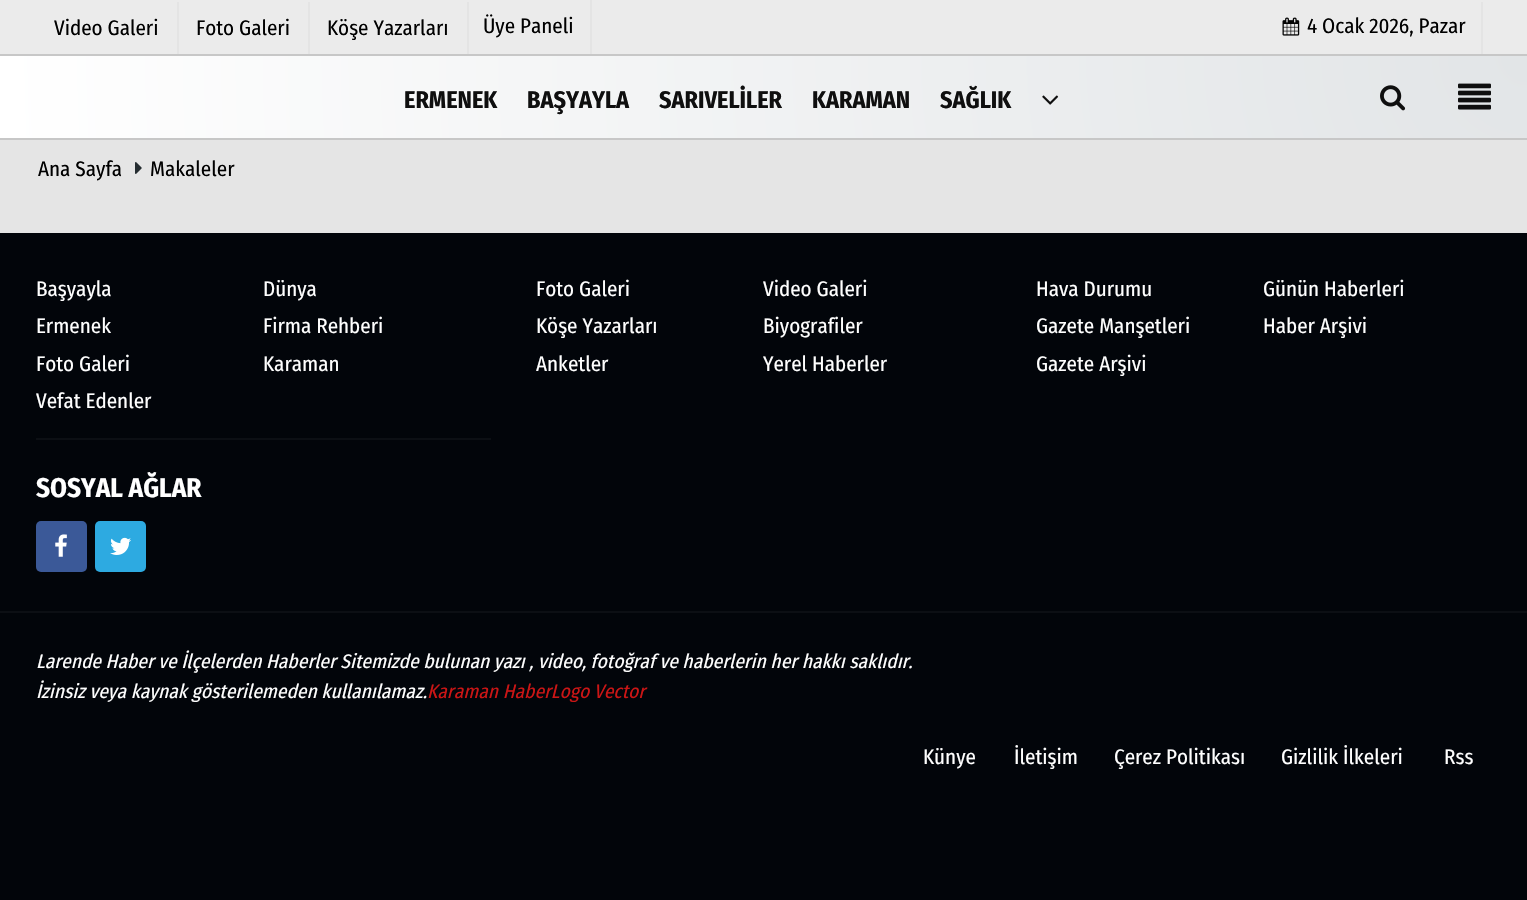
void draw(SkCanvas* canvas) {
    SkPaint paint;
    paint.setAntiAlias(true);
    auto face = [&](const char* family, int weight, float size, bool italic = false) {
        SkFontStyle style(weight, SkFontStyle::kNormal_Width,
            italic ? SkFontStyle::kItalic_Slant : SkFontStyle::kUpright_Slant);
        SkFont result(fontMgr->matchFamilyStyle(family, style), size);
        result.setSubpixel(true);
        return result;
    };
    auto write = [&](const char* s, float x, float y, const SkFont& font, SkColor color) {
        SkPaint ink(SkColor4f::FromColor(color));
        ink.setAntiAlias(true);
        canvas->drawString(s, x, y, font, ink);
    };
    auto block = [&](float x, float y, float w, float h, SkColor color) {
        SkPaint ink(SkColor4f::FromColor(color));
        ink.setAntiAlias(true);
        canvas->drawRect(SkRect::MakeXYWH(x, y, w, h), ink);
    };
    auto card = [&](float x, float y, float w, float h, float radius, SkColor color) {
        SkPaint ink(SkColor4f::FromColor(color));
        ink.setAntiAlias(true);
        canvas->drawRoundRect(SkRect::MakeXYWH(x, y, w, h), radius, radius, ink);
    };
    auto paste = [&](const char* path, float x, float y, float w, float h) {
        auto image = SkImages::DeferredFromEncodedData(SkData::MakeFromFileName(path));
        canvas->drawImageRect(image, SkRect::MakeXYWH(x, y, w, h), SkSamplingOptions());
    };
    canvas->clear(SkColorSetRGB(229, 229, 229));
    block(0, 0, 1527, 54, SkColorSetRGB(235, 235, 235));
    block(467, 2, 2, 52, SkColorSetRGB(228, 228, 228));
    block(308, 2, 2, 52, SkColorSetRGB(228, 228, 228));
    block(177, 2, 2, 52, SkColorSetRGB(228, 228, 228));
    auto kFont1 = face("Fira Sans Condensed", 400, 21);
    write("Video Galeri", 54, 35, kFont1, SK_ColorBLACK);
    write("Foto Galeri", 196, 35, kFont1, SK_ColorBLACK);
    write("Köşe Yazarları", 327, 35, kFont1, SK_ColorBLACK);
    block(590, 0, 2, 54, SkColorSetRGB(228, 228, 228));
    write("Üye Paneli", 483, 33, kFont1, SK_ColorBLACK);
    block(1481, 2, 2, 52, SkColorSetRGB(228, 228, 228));
    paste("pic1.png", 1282, 17, 18, 19);
    write("4 Ocak 2026, Pazar", 1307, 33, kFont1, SK_ColorBLACK);
    {
        const SkColor colors[] = {SkColorSetRGB(226, 229, 231), SK_ColorWHITE};
        const float stops[] = {0, 1};
        paint.setShader(SkGradientShader::MakeRadial({1527, 56}, 1529, colors, stops, 2, SkTileMode::kClamp));
        paint.setAlpha(255);
    }
    canvas->drawRect(SkRect::MakeXYWH(0, 56, 1527, 82), paint);
    block(0, 54, 1527, 2, SkColorSetRGB(199, 199, 199));
    block(0, 138, 1527, 2, SkColorSetRGB(199, 199, 199));
    auto kFont2 = face("Fira Sans Condensed", 700, 24);
    write("ERMENEK", 404, 108, kFont2, SkColorSetRGB(15, 15, 15));
    write("BAŞYAYLA", 527, 108, kFont2, SkColorSetRGB(15, 15, 15));
    write("SARIVELİLER", 659, 108, kFont2, SkColorSetRGB(15, 15, 15));
    write("KARAMAN", 812, 108, kFont2, SkColorSetRGB(15, 15, 15));
    write("SAĞLIK", 940, 108, kFont2, SkColorSetRGB(15, 15, 15));
    paste("pic2.png", 1042, 95, 17, 10);
    paste("pic3.png", 1380, 85, 26, 26);
    paste("pic4.png", 1458, 83, 33, 27);
    write("Ana Sayfa", 38, 176, kFont1, SK_ColorBLACK);
    paste("pic5.png", 135, 162, 7, 12);
    write("Makaleler", 150, 176, kFont1, SK_ColorBLACK);
    block(0, 233, 1527, 667, SkColorSetRGB(2, 5, 10));
    write("Başyayla", 36, 296, kFont1, SK_ColorWHITE);
    write("Dünya", 263, 296, kFont1, SK_ColorWHITE);
    write("Ermenek", 36, 333, kFont1, SK_ColorWHITE);
    write("Firma Rehberi", 263, 333, kFont1, SK_ColorWHITE);
    write("Foto Galeri", 36, 371, kFont1, SK_ColorWHITE);
    write("Karaman", 263, 371, kFont1, SK_ColorWHITE);
    write("Vefat Edenler", 36, 408, kFont1, SK_ColorWHITE);
    block(36, 438, 455, 2, SkColorSetRGB(12, 15, 20));
    auto kFont3 = face("Fira Sans Condensed", 700, 27);
    write("SOSYAL AĞLAR", 36, 497, kFont3, SK_ColorWHITE);
    card(36, 521, 51, 51, 5, SkColorSetRGB(59, 89, 152));
    paste("pic6.png", 55, 534, 12, 23);
    card(95, 521, 51, 51, 5, SkColorSetRGB(45, 170, 225));
    paste("pic7.png", 110, 537, 21, 18);
    write("Foto Galeri", 536, 296, kFont1, SK_ColorWHITE);
    write("Video Galeri", 763, 296, kFont1, SK_ColorWHITE);
    write("Köşe Yazarları", 536, 333, kFont1, SK_ColorWHITE);
    write("Biyografiler", 763, 333, kFont1, SK_ColorWHITE);
    write("Anketler", 536, 371, kFont1, SK_ColorWHITE);
    write("Yerel Haberler", 763, 371, kFont1, SK_ColorWHITE);
    write("Hava Durumu", 1036, 296, kFont1, SK_ColorWHITE);
    write("Günün Haberleri", 1263, 296, kFont1, SK_ColorWHITE);
    write("Gazete Manşetleri", 1036, 333, kFont1, SK_ColorWHITE);
    write("Haber Arşivi", 1263, 333, kFont1, SK_ColorWHITE);
    write("Gazete Arşivi", 1036, 371, kFont1, SK_ColorWHITE);
    block(0, 611, 1527, 2, SkColorSetRGB(12, 15, 20));
    auto kFont4 = face("Fira Sans Condensed", 400, 19.5f, true);
    write("Larende Haber ve İlçelerden Haberler Sitemizde bulunan yazı , video, fotoğraf ve haberlerin her hakkı saklıdır.", 36, 668, kFont4, SK_ColorWHITE);
    write("İzinsiz veya kaynak gösterilemeden kullanılamaz.", 36, 698, kFont4, SK_ColorWHITE);
    write("Karaman HaberLogo Vector", 427, 698, kFont4, SkColorSetRGB(203, 21, 21));
    write("Künye", 923, 764, kFont1, SK_ColorWHITE);
    write("İletişim", 1014, 764, kFont1, SK_ColorWHITE);
    write("Çerez Politikası", 1114, 764, kFont1, SK_ColorWHITE);
    write("Gizlilik İlkeleri", 1281, 764, kFont1, SK_ColorWHITE);
    write("Rss", 1444, 764, kFont1, SK_ColorWHITE);
}
